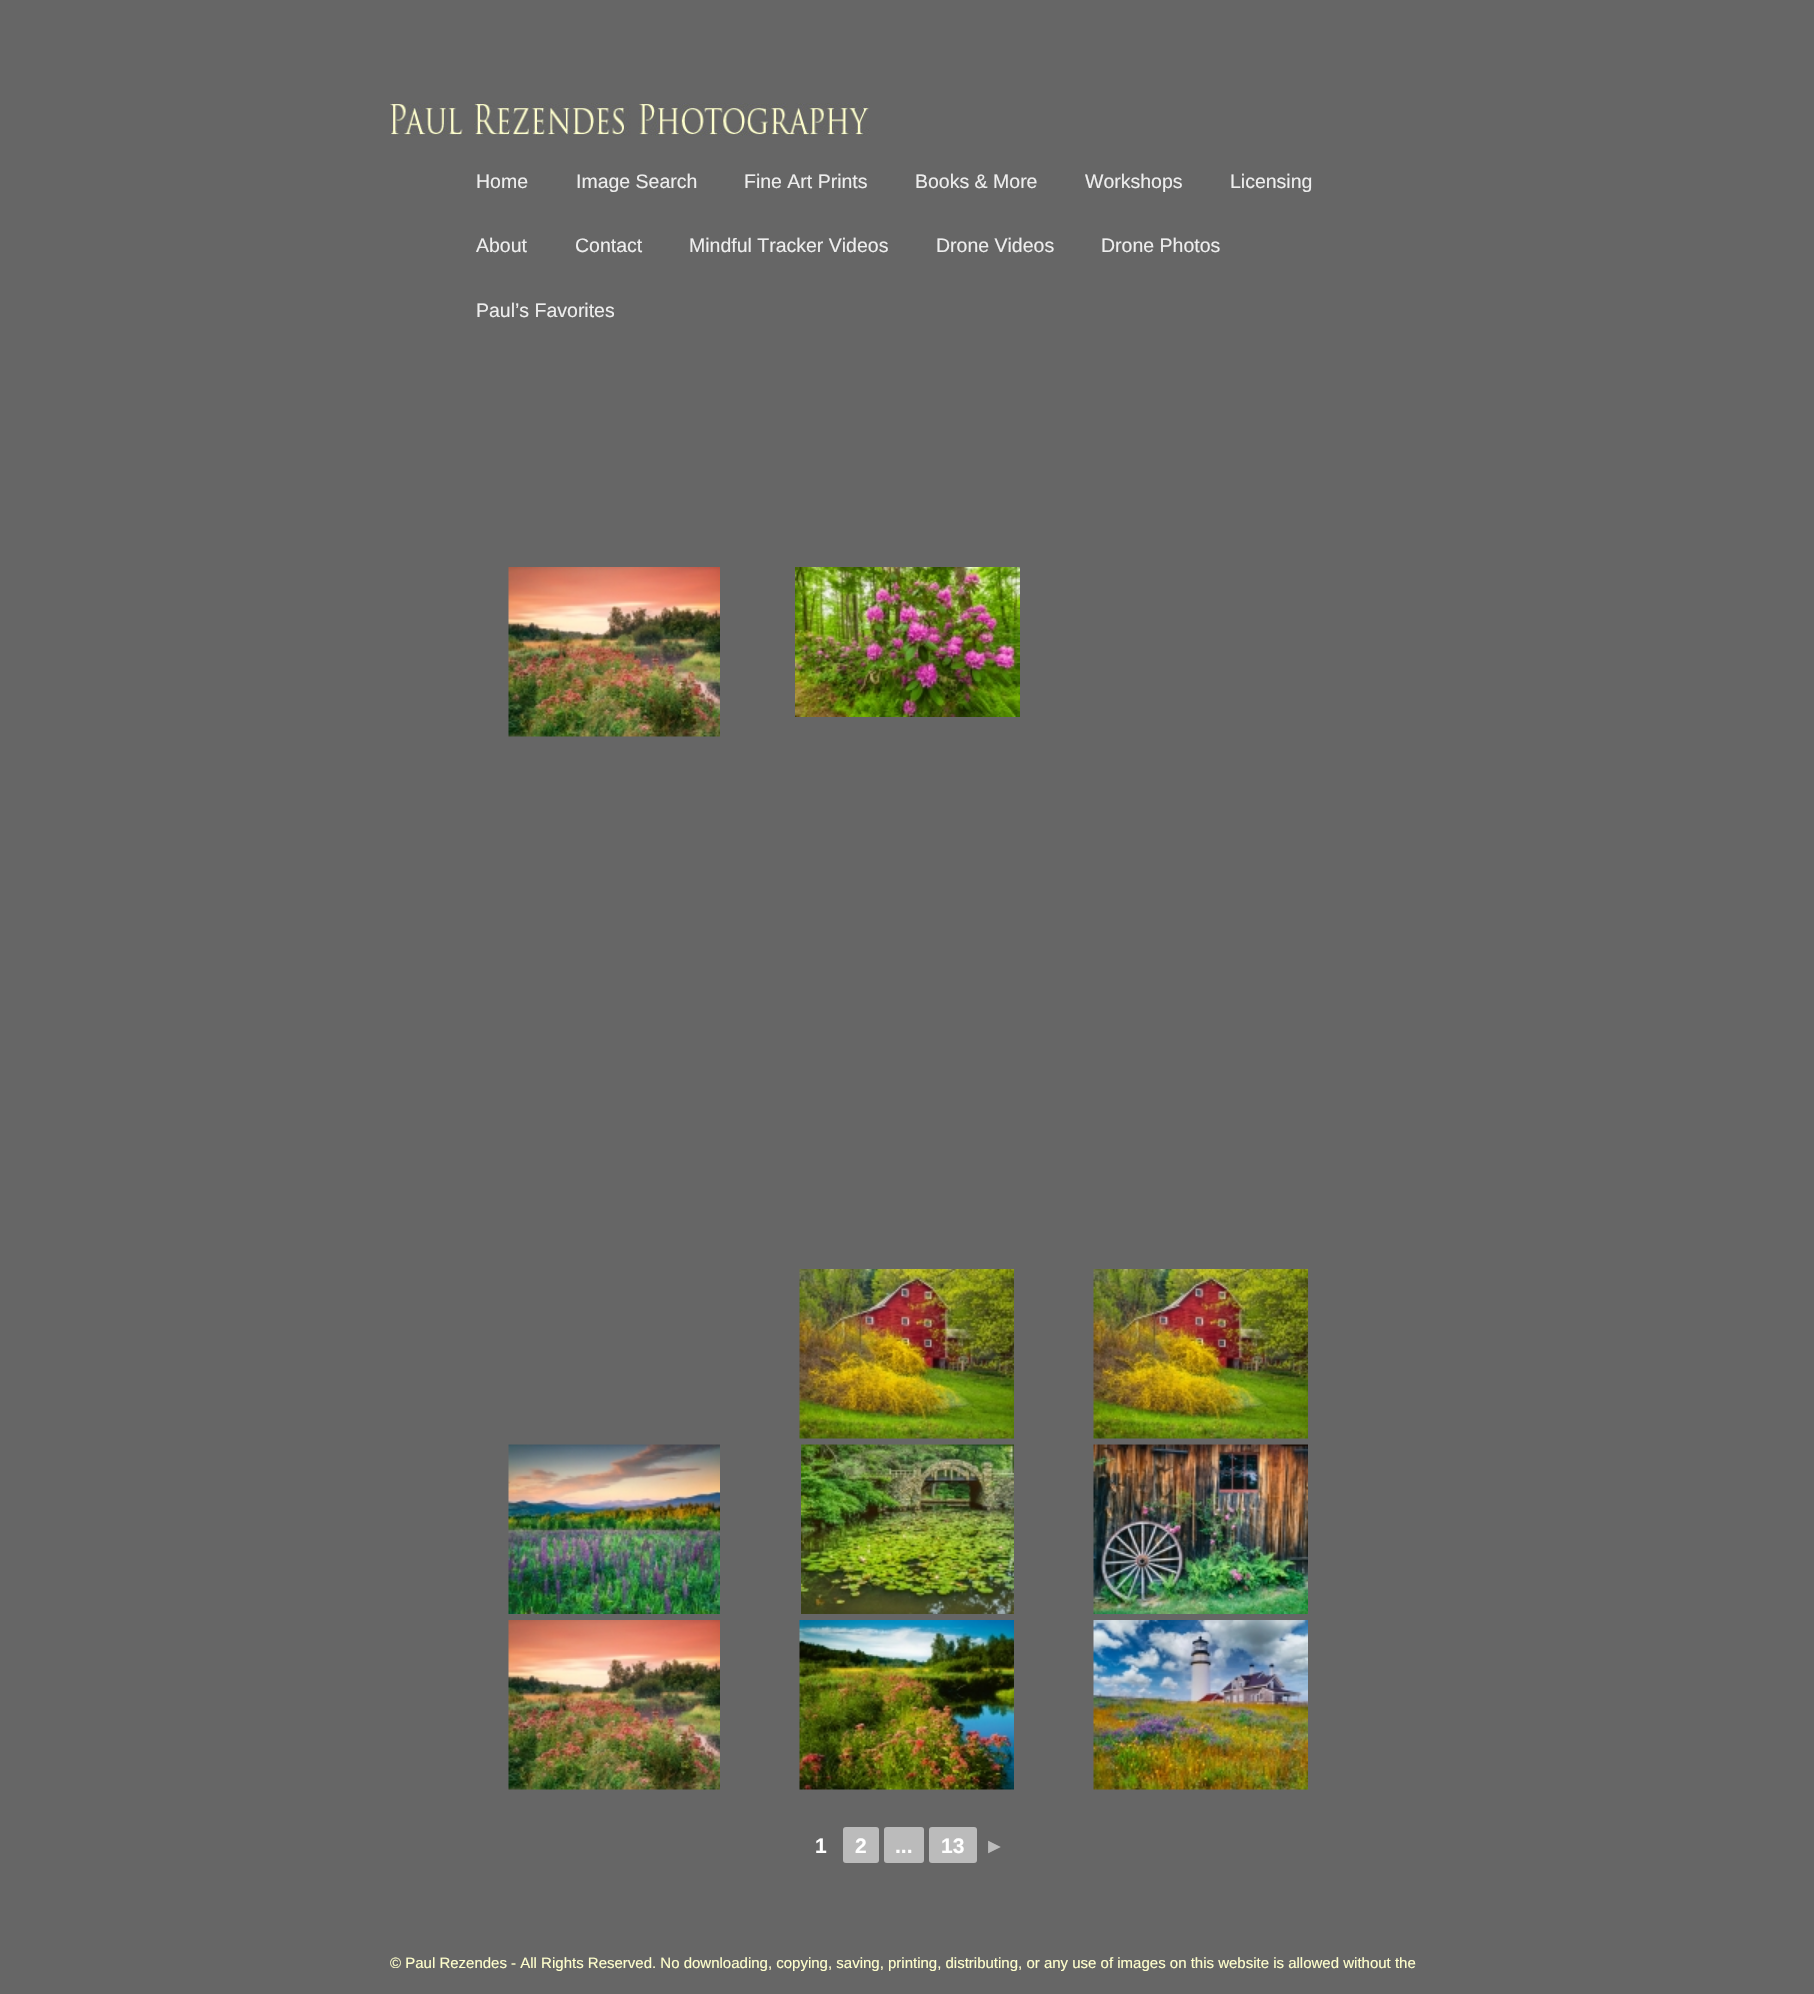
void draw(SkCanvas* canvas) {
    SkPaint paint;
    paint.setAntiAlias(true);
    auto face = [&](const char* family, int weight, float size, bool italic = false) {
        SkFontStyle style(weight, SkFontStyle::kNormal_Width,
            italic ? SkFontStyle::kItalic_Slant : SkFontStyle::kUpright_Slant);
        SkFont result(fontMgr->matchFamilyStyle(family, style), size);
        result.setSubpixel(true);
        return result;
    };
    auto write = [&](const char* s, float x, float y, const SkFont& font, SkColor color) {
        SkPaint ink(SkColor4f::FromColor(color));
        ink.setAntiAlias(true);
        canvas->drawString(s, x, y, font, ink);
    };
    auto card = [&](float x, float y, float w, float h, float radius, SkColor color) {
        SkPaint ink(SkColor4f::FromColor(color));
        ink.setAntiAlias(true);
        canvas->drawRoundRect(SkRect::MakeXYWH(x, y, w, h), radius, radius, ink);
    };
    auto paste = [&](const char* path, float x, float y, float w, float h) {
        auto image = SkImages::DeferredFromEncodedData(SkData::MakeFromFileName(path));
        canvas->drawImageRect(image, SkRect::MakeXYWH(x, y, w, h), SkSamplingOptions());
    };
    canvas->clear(SkColorSetRGB(102, 102, 102));
    paste("pic1.png", 390, 103, 480, 33);
    auto kFont1 = face("Liberation Sans", 400, 19.5f);
    write("Home", 476, 188, kFont1, SkColorSetRGB(238, 238, 238));
    write("Image Search", 576, 188, kFont1, SkColorSetRGB(238, 238, 238));
    write("Fine Art Prints", 744, 188, kFont1, SkColorSetRGB(238, 238, 238));
    write("Books & More", 915, 188, kFont1, SkColorSetRGB(238, 238, 238));
    write("Workshops", 1085, 188, kFont1, SkColorSetRGB(238, 238, 238));
    write("Licensing", 1230, 188, kFont1, SkColorSetRGB(238, 238, 238));
    write("About", 476, 252, kFont1, SkColorSetRGB(238, 238, 238));
    write("Contact", 575, 252, kFont1, SkColorSetRGB(238, 238, 238));
    write("Mindful Tracker Videos", 689, 252, kFont1, SkColorSetRGB(238, 238, 238));
    write("Drone Videos", 936, 252, kFont1, SkColorSetRGB(238, 238, 238));
    write("Drone Photos", 1101, 252, kFont1, SkColorSetRGB(238, 238, 238));
    write("Paul’s Favorites", 476, 317, kFont1, SkColorSetRGB(238, 238, 238));
    paste("pic2.png", 508, 567, 212, 170);
    paste("pic3.png", 795, 567, 225, 150);
    paste("pic4.png", 799, 1269, 215, 170);
    paste("pic5.png", 1093, 1269, 215, 170);
    paste("pic6.png", 508, 1444, 212, 170);
    paste("pic7.png", 801, 1444, 213, 170);
    paste("pic8.png", 1093, 1444, 215, 170);
    paste("pic9.png", 508, 1620, 212, 170);
    paste("pic10.png", 799, 1620, 215, 170);
    paste("pic11.png", 1093, 1620, 215, 170);
    auto kFont2 = face("Liberation Sans", 700, 21);
    write("1", 815, 1853, kFont2, SK_ColorWHITE);
    card(843, 1827, 36, 36, 3, SkColorSetRGB(187, 187, 187));
    write("2", 855, 1853, kFont2, SK_ColorWHITE);
    card(884, 1827, 40, 36, 3, SkColorSetRGB(187, 187, 187));
    write("...", 895, 1853, kFont2, SK_ColorWHITE);
    card(929, 1827, 48, 36, 3, SkColorSetRGB(187, 187, 187));
    write("13", 941, 1853, kFont2, SK_ColorWHITE);
    write("►", 984, 1853, kFont2, SkColorSetRGB(187, 187, 187));
    auto kFont3 = face("Liberation Sans", 400, 15);
    write("© Paul Rezendes - All Rights Reserved. No downloading, copying, saving, printing, distributing, or any use of images on this website is allowed without the", 390, 1968, kFont3, SkColorSetRGB(255, 255, 204));
}
